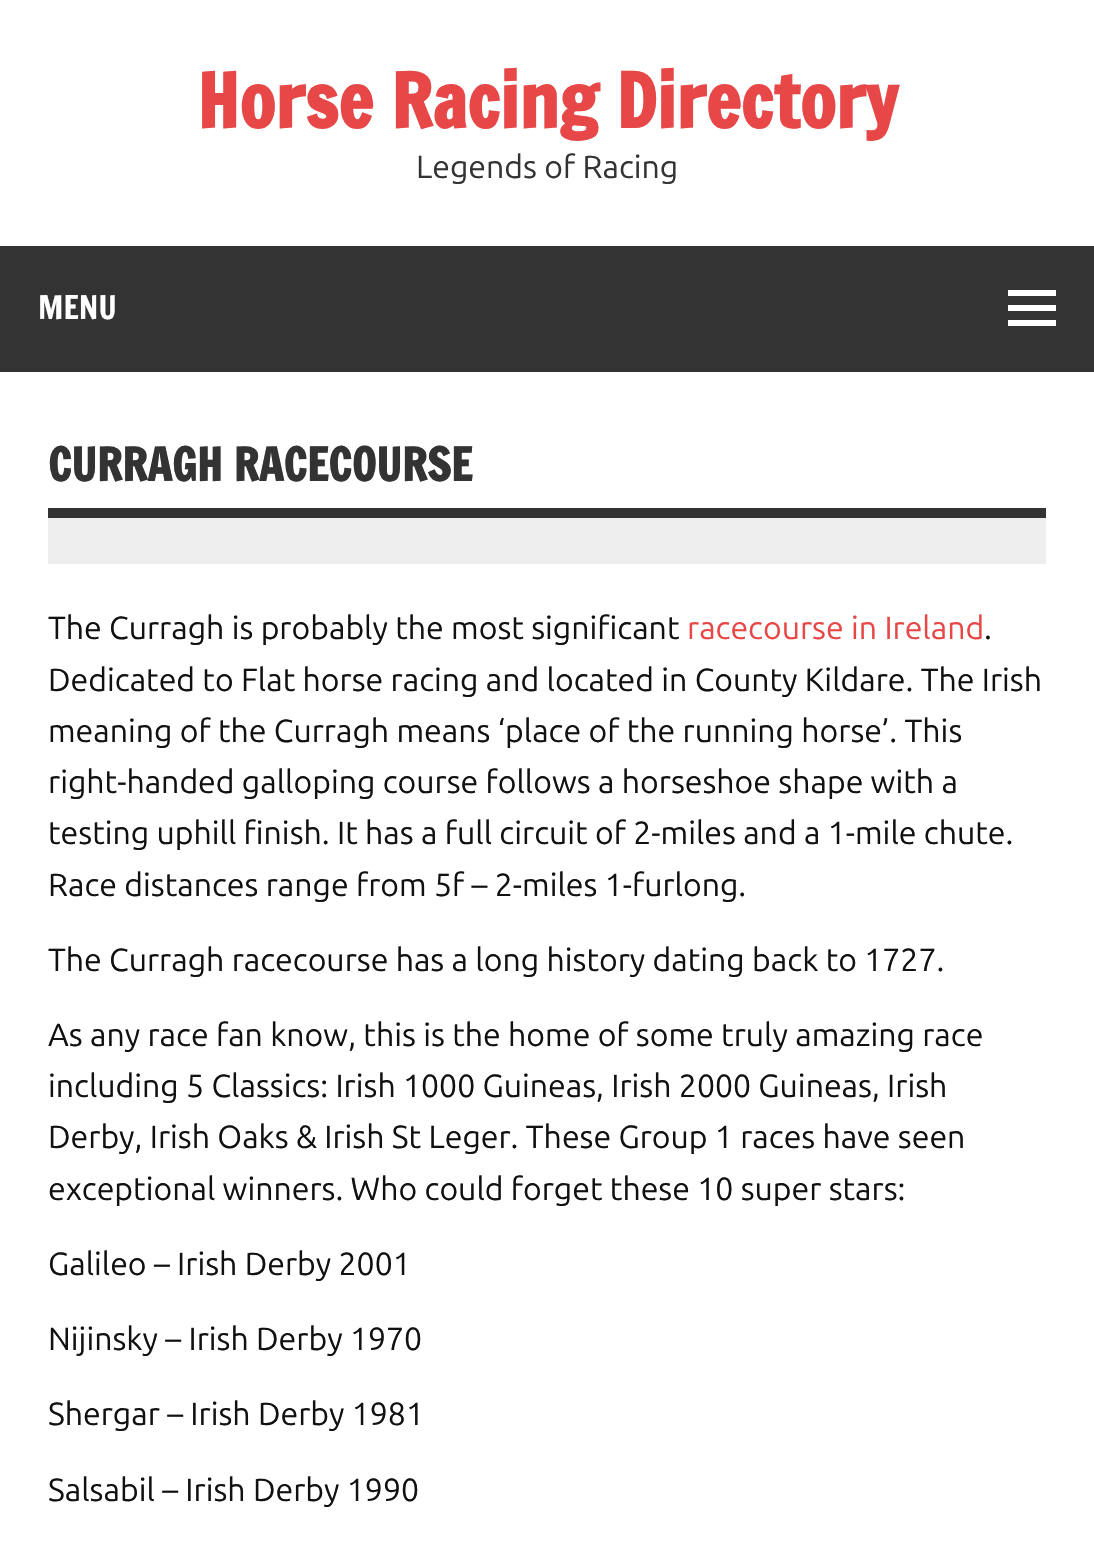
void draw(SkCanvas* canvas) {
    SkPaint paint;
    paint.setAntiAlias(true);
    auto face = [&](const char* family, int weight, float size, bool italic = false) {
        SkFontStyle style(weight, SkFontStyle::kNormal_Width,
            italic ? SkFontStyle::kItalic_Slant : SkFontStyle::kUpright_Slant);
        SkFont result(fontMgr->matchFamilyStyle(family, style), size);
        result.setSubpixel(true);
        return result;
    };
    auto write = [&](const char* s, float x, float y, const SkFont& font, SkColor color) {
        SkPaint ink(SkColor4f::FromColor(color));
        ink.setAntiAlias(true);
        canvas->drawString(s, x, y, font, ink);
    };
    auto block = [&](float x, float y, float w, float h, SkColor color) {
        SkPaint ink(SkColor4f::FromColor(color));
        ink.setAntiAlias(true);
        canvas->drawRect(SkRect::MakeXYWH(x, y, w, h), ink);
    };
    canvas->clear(SK_ColorWHITE);
    auto kFont1 = face("Francois One", 700, 73.6f);
    write("Horse Racing Directory", 197, 128, kFont1, SkColorSetRGB(232, 71, 71));
    auto kFont2 = face("Ubuntu", 400, 32);
    write("Legends of Racing", 416, 178, kFont2, SkColorSetRGB(51, 51, 51));
    block(0, 246, 1094, 126, SkColorSetRGB(51, 51, 51));
    auto kFont3 = face("Francois One", 400, 32);
    write("MENU", 38, 319, kFont3, SK_ColorWHITE);
    paint.setColor(SK_ColorWHITE);
    canvas->drawPath(SkPathBuilder().moveTo(1008, 326).lineTo(1008, 320).lineTo(1056, 320).lineTo(1056, 326).close().moveTo(1008, 290).lineTo(1056, 290).lineTo(1056, 296).lineTo(1008, 296).close().moveTo(1008, 311).lineTo(1008, 305).lineTo(1056, 305).lineTo(1056, 311).close().detach(), paint);
    block(48, 508, 998, 10, SkColorSetRGB(51, 51, 51));
    auto kFont4 = face("Francois One", 700, 44.75f);
    write("CURRAGH RACECOURSE", 48, 481, kFont4, SkColorSetRGB(51, 51, 51));
    block(48, 518, 998, 46, SkColorSetRGB(238, 238, 238));
    write("The Curragh is probably the most significant", 48, 639, kFont2, SkColorSetRGB(17, 17, 17));
    write("racecourse in Ireland", 687, 639, kFont2, SkColorSetRGB(232, 71, 71));
    write(".", 984, 639, kFont2, SkColorSetRGB(17, 17, 17));
    write("Dedicated to Flat horse racing and located in County Kildare. The Irish", 48, 691, kFont2, SkColorSetRGB(17, 17, 17));
    write("meaning of the Curragh means ‘place of the running horse’. This", 48, 742, kFont2, SkColorSetRGB(17, 17, 17));
    write("right-handed galloping course follows a horseshoe shape with a", 48, 793, kFont2, SkColorSetRGB(17, 17, 17));
    write("testing uphill finish. It has a full circuit of 2-miles and a 1-mile chute.", 48, 844, kFont2, SkColorSetRGB(17, 17, 17));
    write("Race distances range from 5f – 2-miles 1-furlong.", 48, 896, kFont2, SkColorSetRGB(17, 17, 17));
    write("The Curragh racecourse has a long history dating back to 1727.", 48, 971, kFont2, SkColorSetRGB(17, 17, 17));
    write("As any race fan know, this is the home of some truly amazing race", 48, 1046, kFont2, SkColorSetRGB(17, 17, 17));
    write("including 5 Classics: Irish 1000 Guineas, Irish 2000 Guineas, Irish", 48, 1097, kFont2, SkColorSetRGB(17, 17, 17));
    write("Derby, Irish Oaks & Irish St Leger. These Group 1 races have seen", 48, 1148, kFont2, SkColorSetRGB(17, 17, 17));
    write("exceptional winners. Who could forget these 10 super stars:", 48, 1200, kFont2, SkColorSetRGB(17, 17, 17));
    write("Galileo – Irish Derby 2001", 48, 1275, kFont2, SkColorSetRGB(17, 17, 17));
    write("Nijinsky – Irish Derby 1970", 48, 1350, kFont2, SkColorSetRGB(17, 17, 17));
    write("Shergar – Irish Derby 1981", 48, 1425, kFont2, SkColorSetRGB(17, 17, 17));
    write("Salsabil – Irish Derby 1990", 48, 1501, kFont2, SkColorSetRGB(17, 17, 17));
}
